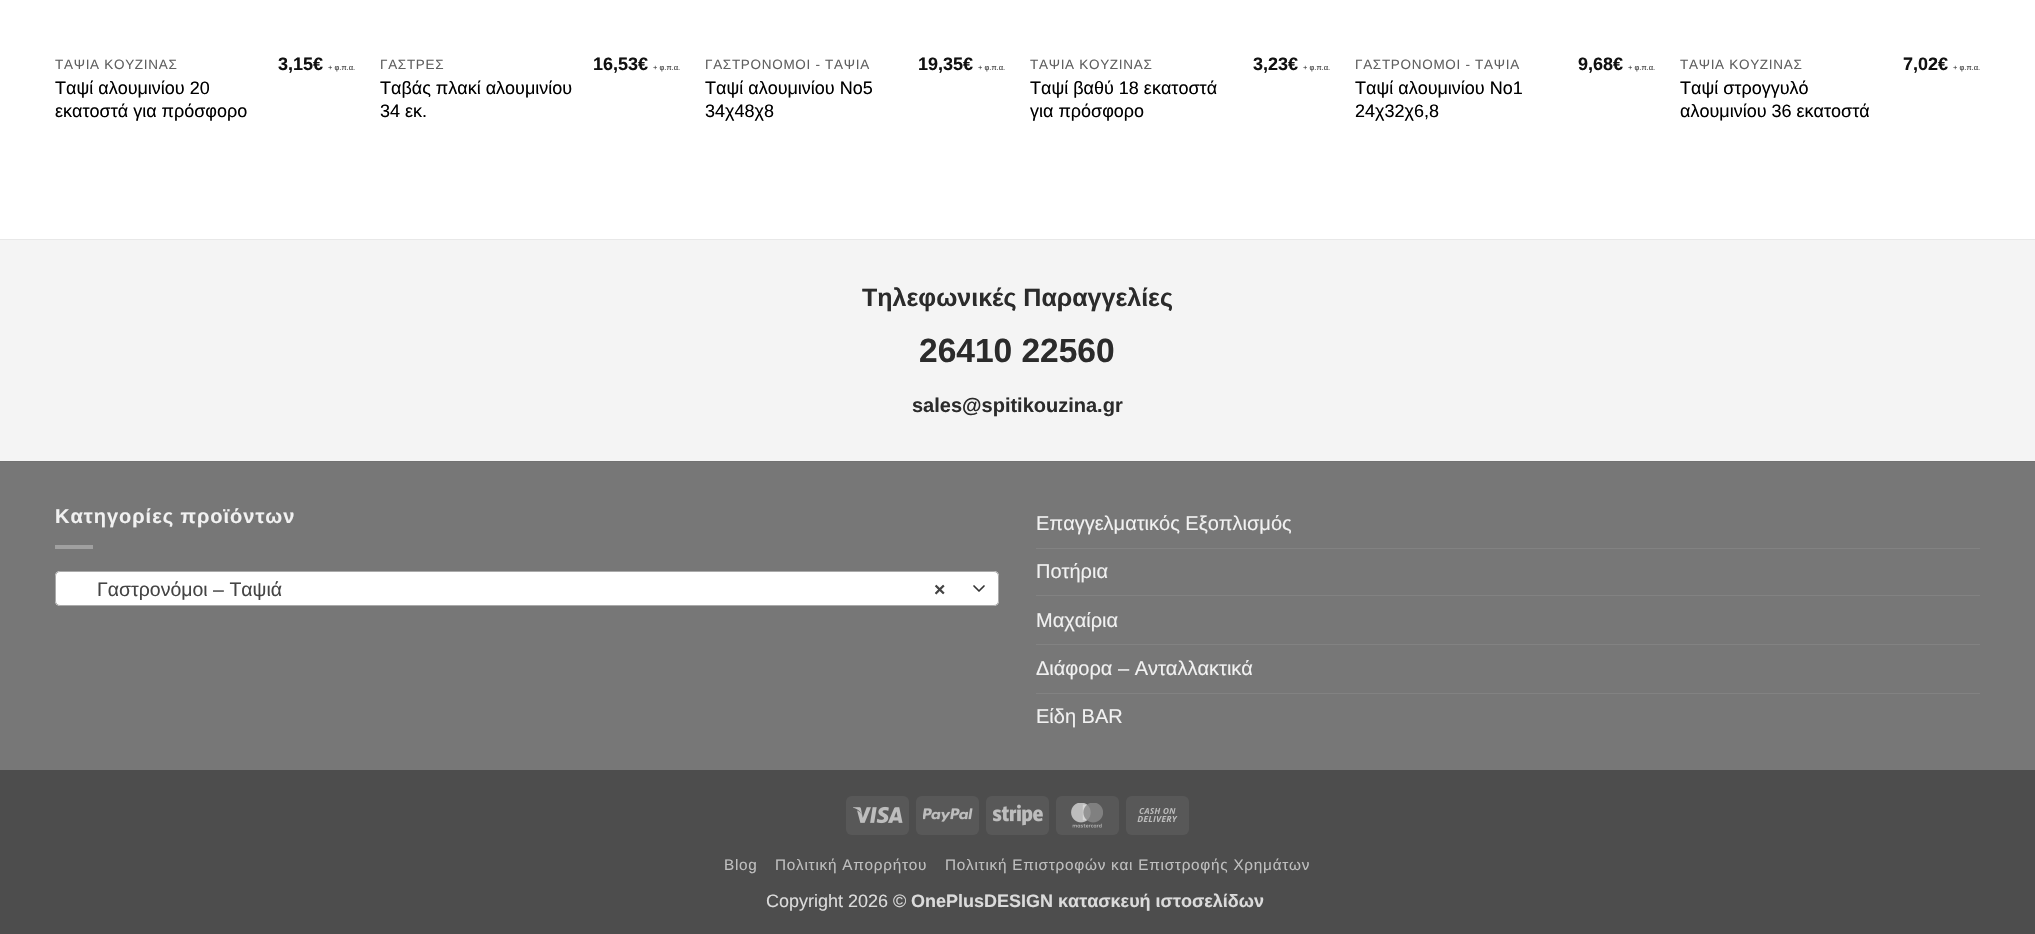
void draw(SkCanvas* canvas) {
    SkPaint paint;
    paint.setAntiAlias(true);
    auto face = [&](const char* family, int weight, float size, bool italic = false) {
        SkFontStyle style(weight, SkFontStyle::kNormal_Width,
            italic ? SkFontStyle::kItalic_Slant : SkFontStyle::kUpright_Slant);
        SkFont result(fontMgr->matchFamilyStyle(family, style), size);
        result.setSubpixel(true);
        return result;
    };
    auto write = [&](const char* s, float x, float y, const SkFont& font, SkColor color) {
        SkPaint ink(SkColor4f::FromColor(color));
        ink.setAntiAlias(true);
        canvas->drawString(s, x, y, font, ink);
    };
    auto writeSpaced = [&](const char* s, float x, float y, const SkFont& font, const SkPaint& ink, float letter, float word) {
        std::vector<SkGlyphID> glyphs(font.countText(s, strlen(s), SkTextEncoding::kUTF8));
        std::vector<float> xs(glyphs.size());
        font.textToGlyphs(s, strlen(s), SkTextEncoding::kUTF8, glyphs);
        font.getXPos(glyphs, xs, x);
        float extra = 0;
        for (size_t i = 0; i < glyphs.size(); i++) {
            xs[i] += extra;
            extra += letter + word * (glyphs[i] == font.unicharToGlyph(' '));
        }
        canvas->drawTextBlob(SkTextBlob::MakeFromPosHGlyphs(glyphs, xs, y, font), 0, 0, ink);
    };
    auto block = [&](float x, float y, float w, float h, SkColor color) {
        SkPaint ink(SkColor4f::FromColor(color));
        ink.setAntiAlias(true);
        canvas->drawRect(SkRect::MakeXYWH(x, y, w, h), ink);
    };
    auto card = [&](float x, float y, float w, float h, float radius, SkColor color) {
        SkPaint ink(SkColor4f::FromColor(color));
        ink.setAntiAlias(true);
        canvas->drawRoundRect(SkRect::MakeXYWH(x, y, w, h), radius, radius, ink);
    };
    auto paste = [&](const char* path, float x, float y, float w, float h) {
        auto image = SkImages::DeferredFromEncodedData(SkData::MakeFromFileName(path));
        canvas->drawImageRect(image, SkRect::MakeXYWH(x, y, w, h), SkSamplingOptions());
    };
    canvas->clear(SK_ColorWHITE);
    auto kFont1 = face("Liberation Sans", 400, 13.5f);
    paint.setColor(SkColorSetRGB(96, 96, 96));
    writeSpaced("ΤΑΨΙΑ ΚΟΥΖΙΝΑΣ", 55, 69, kFont1, paint, 0.7f, 0);
    auto kFont2 = face("Liberation Sans", 400, 18);
    write("Ταψί αλουμινίου 20", 55, 94, kFont2, SK_ColorBLACK);
    write("εκατοστά για πρόσφορο", 55, 117, kFont2, SK_ColorBLACK);
    auto kFont3 = face("Liberation Sans", 700, 18);
    write("3,15€", 278, 70, kFont3, SkColorSetRGB(17, 17, 17));
    auto kFont4 = face("Liberation Sans", 400, 7.5f);
    write("+ φ.π.α.", 328, 70, kFont4, SkColorSetRGB(56, 56, 56));
    writeSpaced("ΓΑΣΤΡΕΣ", 380, 69, kFont1, paint, 0.7f, 0);
    write("Ταβάς πλακί αλουμινίου", 380, 94, kFont2, SK_ColorBLACK);
    write("34 εκ.", 380, 117, kFont2, SK_ColorBLACK);
    write("16,53€", 593, 70, kFont3, SkColorSetRGB(17, 17, 17));
    write("+ φ.π.α.", 653, 70, kFont4, SkColorSetRGB(56, 56, 56));
    writeSpaced("ΓΑΣΤΡΟΝΟΜΟΙ - TΑΨΙΑ", 705, 69, kFont1, paint, 0.7f, 0);
    write("Ταψί αλουμινίου Νο5", 705, 94, kFont2, SK_ColorBLACK);
    write("34χ48χ8", 705, 117, kFont2, SK_ColorBLACK);
    write("19,35€", 918, 70, kFont3, SkColorSetRGB(17, 17, 17));
    write("+ φ.π.α.", 978, 70, kFont4, SkColorSetRGB(56, 56, 56));
    writeSpaced("ΤΑΨΙΑ ΚΟΥΖΙΝΑΣ", 1030, 69, kFont1, paint, 0.7f, 0);
    write("Ταψί βαθύ 18 εκατοστά", 1030, 94, kFont2, SK_ColorBLACK);
    write("για πρόσφορο", 1030, 117, kFont2, SK_ColorBLACK);
    write("3,23€", 1253, 70, kFont3, SkColorSetRGB(17, 17, 17));
    write("+ φ.π.α.", 1303, 70, kFont4, SkColorSetRGB(56, 56, 56));
    writeSpaced("ΓΑΣΤΡΟΝΟΜΟΙ - TΑΨΙΑ", 1355, 69, kFont1, paint, 0.7f, 0);
    write("Ταψί αλουμινίου Νο1", 1355, 94, kFont2, SK_ColorBLACK);
    write("24χ32χ6,8", 1355, 117, kFont2, SK_ColorBLACK);
    write("9,68€", 1578, 70, kFont3, SkColorSetRGB(17, 17, 17));
    write("+ φ.π.α.", 1628, 70, kFont4, SkColorSetRGB(56, 56, 56));
    writeSpaced("ΤΑΨΙΑ ΚΟΥΖΙΝΑΣ", 1680, 69, kFont1, paint, 0.7f, 0);
    write("Ταψί στρογγυλό", 1680, 94, kFont2, SK_ColorBLACK);
    write("αλουμινίου 36 εκατοστά", 1680, 117, kFont2, SK_ColorBLACK);
    write("7,02€", 1903, 70, kFont3, SkColorSetRGB(17, 17, 17));
    write("+ φ.π.α.", 1953, 70, kFont4, SkColorSetRGB(56, 56, 56));
    block(0, 240, 2035, 221, SkColorSetRGB(244, 244, 244));
    block(0, 239, 2035, 1, SkColorSetRGB(232, 232, 232));
    auto kFont5 = face("Liberation Sans", 700, 25);
    write("Τηλεφωνικές Παραγγελίες", 862, 306, kFont5, SkColorSetRGB(43, 43, 43));
    auto kFont6 = face("Liberation Sans", 700, 33.5f);
    write("26410 22560", 919, 362, kFont6, SkColorSetRGB(43, 43, 43));
    auto kFont7 = face("Liberation Sans", 700, 20);
    write("sales@spitikouzina.gr", 912, 412, kFont7, SkColorSetRGB(43, 43, 43));
    block(0, 462, 2035, 308, SkColorSetRGB(119, 119, 119));
    block(0, 461, 2035, 1, SkColorSetRGB(113, 113, 113));
    paint.setColor(SkColorSetRGB(241, 241, 241));
    writeSpaced("Κατηγορίες προϊόντων", 55, 523, kFont7, paint, 1, 0);
    block(55, 545, 38, 4, SkColorSetRGB(160, 160, 160));
    card(55, 571, 944, 35, 5, SK_ColorWHITE);
    paint.setStyle(SkPaint::kStroke_Style);
    paint.setStrokeWidth(1.7f);
    paint.setStrokeCap(SkPaint::kRound_Cap);
    paint.setStrokeJoin(SkPaint::kRound_Join);
    paint.setColor(SkColorSetRGB(51, 51, 51));
    canvas->drawPath(SkPathBuilder().moveTo(974, 586).lineTo(979, 591).lineTo(984, 586).detach(), paint);
    paint.setStrokeWidth(1);
    paint.setStrokeCap(SkPaint::kButt_Cap);
    paint.setStrokeJoin(SkPaint::kMiter_Join);
    paint.setColor(SkColorSetRGB(170, 170, 170));
    canvas->drawRoundRect(SkRect::MakeXYWH(55.5f, 571.5f, 943, 34), 4.5f, 4.5f, paint);
    auto kFont8 = face("Liberation Sans", 400, 19.5f);
    write("Γαστρονόμοι – Tαψιά", 97, 596, kFont8, SkColorSetRGB(68, 68, 68));
    auto kFont9 = face("Liberation Sans", 700, 19.5f);
    write("×", 934, 596, kFont9, SkColorSetRGB(68, 68, 68));
    auto kFont10 = face("Liberation Sans", 400, 20);
    write("Επαγγελματικός Εξοπλισμός", 1036, 530, kFont10, SkColorSetRGB(241, 241, 241));
    block(1036, 548, 944, 1, SkColorSetRGB(130, 130, 130));
    write("Ποτήρια", 1036, 578, kFont10, SkColorSetRGB(241, 241, 241));
    block(1036, 595, 944, 1, SkColorSetRGB(130, 130, 130));
    write("Μαχαίρια", 1036, 627, kFont10, SkColorSetRGB(241, 241, 241));
    block(1036, 644, 944, 1, SkColorSetRGB(130, 130, 130));
    write("Διάφορα – Ανταλλακτικά", 1036, 675, kFont10, SkColorSetRGB(241, 241, 241));
    block(1036, 693, 944, 1, SkColorSetRGB(130, 130, 130));
    write("Είδη ΒAR", 1036, 723, kFont10, SkColorSetRGB(241, 241, 241));
    block(0, 770, 2035, 164, SkColorSetRGB(77, 77, 77));
    card(846, 796, 63, 39, 6, SkColorSetRGB(88, 88, 88));
    paste("pic1.png", 853, 806, 50, 18);
    card(916, 796, 63, 39, 6, SkColorSetRGB(88, 88, 88));
    paste("pic2.png", 923, 808, 50, 14);
    card(986, 796, 63, 39, 6, SkColorSetRGB(88, 88, 88));
    paste("pic3.png", 993, 804, 50, 22);
    card(1056, 796, 63, 39, 6, SkColorSetRGB(88, 88, 88));
    paste("pic4.png", 1071, 803, 32, 25);
    card(1126, 796, 63, 39, 6, SkColorSetRGB(88, 88, 88));
    paste("pic5.png", 1137, 808, 41, 14);
    auto kFont11 = face("Liberation Sans", 400, 15.3f);
    paint.setStyle(SkPaint::kFill_Style);
    paint.setColor(SkColorSetRGB(191, 191, 191));
    writeSpaced("Blog", 724, 870, kFont11, paint, 0.75f, 0);
    writeSpaced("Πολιτική Απορρήτου", 775, 870, kFont11, paint, 0.75f, 0);
    writeSpaced("Πολιτική Επιστροφών και Επιστροφής Χρημάτων", 945, 870, kFont11, paint, 0.75f, 0);
    write("Copyright 2026 ©", 766, 907, kFont2, SkColorSetRGB(219, 219, 219));
    write("OnePlusDESIGN κατασκευή ιστοσελίδων", 911, 907, kFont3, SkColorSetRGB(219, 219, 219));
}
